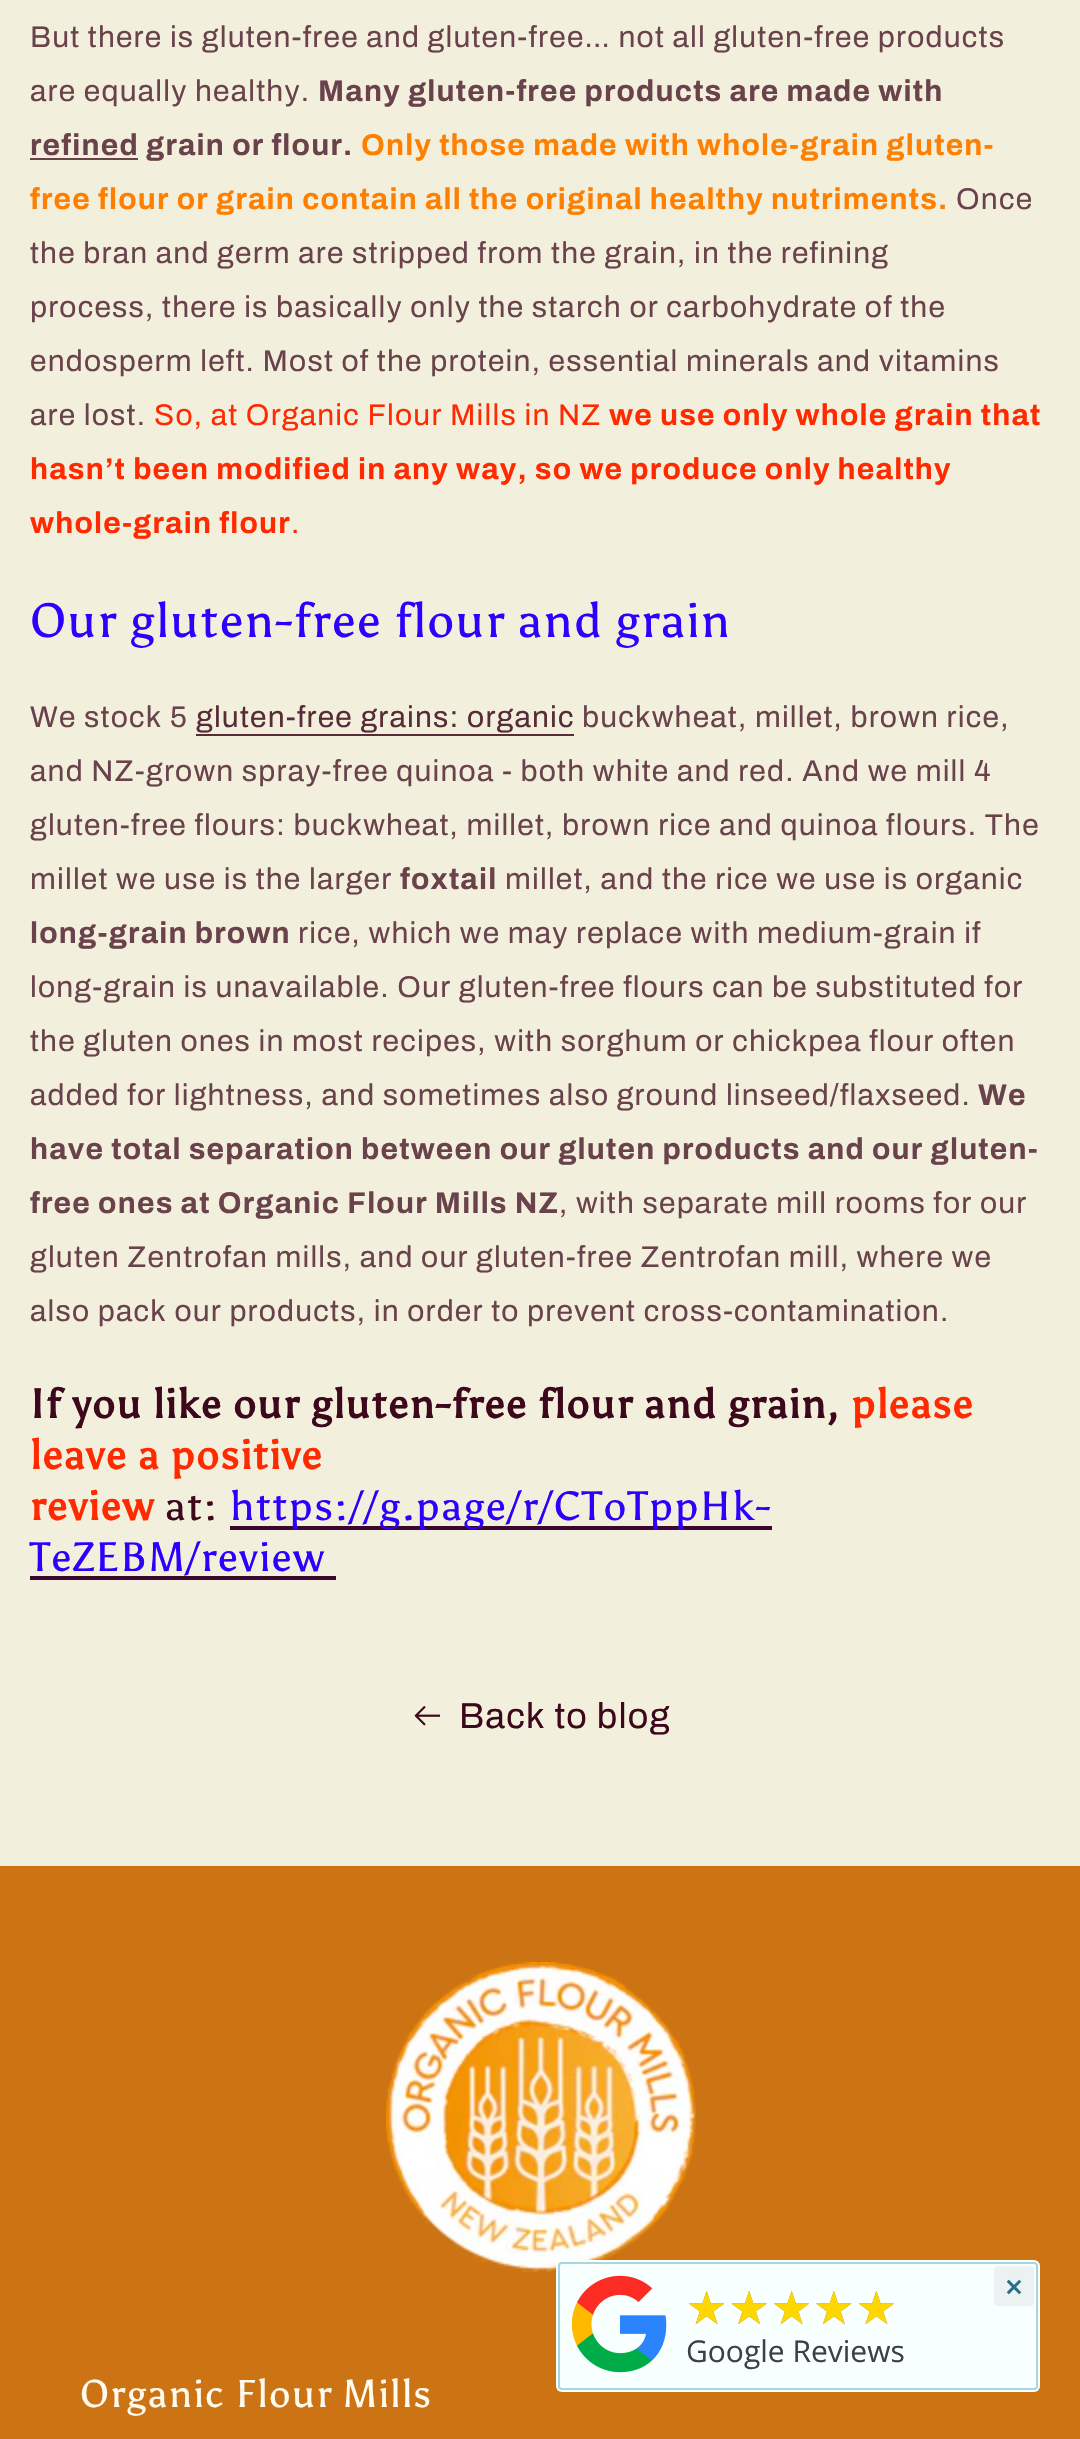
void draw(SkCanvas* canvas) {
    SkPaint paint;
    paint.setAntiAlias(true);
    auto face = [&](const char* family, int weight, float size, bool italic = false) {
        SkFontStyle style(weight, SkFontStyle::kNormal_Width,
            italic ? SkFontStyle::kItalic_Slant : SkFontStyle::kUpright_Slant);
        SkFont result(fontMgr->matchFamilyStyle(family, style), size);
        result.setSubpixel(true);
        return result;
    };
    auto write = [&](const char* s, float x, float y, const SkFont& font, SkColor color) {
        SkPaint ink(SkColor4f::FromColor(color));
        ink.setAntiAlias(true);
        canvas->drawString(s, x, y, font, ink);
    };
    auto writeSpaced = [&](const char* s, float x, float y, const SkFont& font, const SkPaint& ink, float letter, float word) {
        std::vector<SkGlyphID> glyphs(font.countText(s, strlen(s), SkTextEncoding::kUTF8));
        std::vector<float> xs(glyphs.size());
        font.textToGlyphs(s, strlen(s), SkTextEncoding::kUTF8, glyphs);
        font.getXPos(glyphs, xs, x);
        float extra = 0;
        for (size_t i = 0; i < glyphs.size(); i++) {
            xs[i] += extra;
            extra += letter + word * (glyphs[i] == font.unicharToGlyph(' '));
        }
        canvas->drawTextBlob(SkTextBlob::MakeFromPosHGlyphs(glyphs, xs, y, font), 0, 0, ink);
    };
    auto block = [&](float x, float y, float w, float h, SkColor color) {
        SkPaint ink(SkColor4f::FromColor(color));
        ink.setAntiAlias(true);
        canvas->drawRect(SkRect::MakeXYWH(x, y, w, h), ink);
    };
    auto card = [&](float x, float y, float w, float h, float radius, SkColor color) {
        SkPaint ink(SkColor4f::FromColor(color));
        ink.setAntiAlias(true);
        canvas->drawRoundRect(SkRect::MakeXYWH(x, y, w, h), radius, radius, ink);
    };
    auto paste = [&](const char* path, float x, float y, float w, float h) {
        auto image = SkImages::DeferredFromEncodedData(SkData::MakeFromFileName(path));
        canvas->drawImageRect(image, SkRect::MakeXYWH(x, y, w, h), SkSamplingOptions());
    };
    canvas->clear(SkColorSetRGB(242, 239, 221));
    auto kFont1 = face("Archivo", 400, 30);
    paint.setColor(SkColorSetRGB(106, 66, 76));
    writeSpaced("But there is gluten-free and gluten-free… not all gluten-free products", 30, 47, kFont1, paint, 1.2f, 0);
    writeSpaced("are equally healthy.", 30, 101, kFont1, paint, 1.2f, 0);
    auto kFont2 = face("Archivo", 700, 30);
    writeSpaced("Many gluten-free products are made with", 318, 101, kFont2, paint, 1.2f, 0);
    block(30, 158, 108, 2, SkColorSetRGB(106, 66, 76));
    writeSpaced("refined grain or flour.", 30, 155, kFont2, paint, 1.2f, 0);
    paint.setColor(SkColorSetRGB(255, 128, 0));
    writeSpaced("Only those made with whole-grain gluten-", 361, 155, kFont2, paint, 1.2f, 0);
    writeSpaced("free flour or grain contain all the original healthy nutriments.", 30, 209, kFont2, paint, 1.2f, 0);
    paint.setColor(SkColorSetRGB(106, 66, 76));
    writeSpaced("Once", 956, 209, kFont1, paint, 1.2f, 0);
    writeSpaced("the bran and germ are stripped from the grain, in the refining", 30, 263, kFont1, paint, 1.2f, 0);
    writeSpaced("process, there is basically only the starch or carbohydrate of the", 30, 317, kFont1, paint, 1.2f, 0);
    writeSpaced("endosperm left. Most of the protein, essential minerals and vitamins", 30, 371, kFont1, paint, 1.2f, 0);
    writeSpaced("are lost.", 30, 425, kFont1, paint, 1.2f, 0);
    paint.setColor(SkColorSetRGB(255, 42, 0));
    writeSpaced("So, at Organic Flour Mills in NZ", 154, 425, kFont1, paint, 1.2f, 0);
    writeSpaced("we use only whole grain that", 609, 425, kFont2, paint, 1.2f, 0);
    writeSpaced("hasn’t been modified in any way, so we produce only healthy", 30, 479, kFont2, paint, 1.2f, 0);
    writeSpaced("whole-grain flour", 30, 533, kFont2, paint, 1.2f, 0);
    writeSpaced(".", 291, 533, kFont1, paint, 1.2f, 0);
    auto kFont3 = face("Asul", 400, 48);
    paint.setColor(SkColorSetRGB(43, 0, 255));
    writeSpaced("Our gluten-free flour and grain", 30, 637, kFont3, paint, 1.45f, 0);
    paint.setColor(SkColorSetRGB(106, 66, 76));
    writeSpaced("We stock 5", 30, 727, kFont1, paint, 1.2f, 0);
    paint.setColor(SkColorSetRGB(88, 43, 56));
    writeSpaced("gluten-free grains: organic", 196, 727, kFont1, paint, 1.2f, 0);
    block(196, 734, 378, 2, SkColorSetRGB(88, 43, 56));
    paint.setColor(SkColorSetRGB(106, 66, 76));
    writeSpaced("buckwheat, millet, brown rice,", 582, 727, kFont1, paint, 1.2f, 0);
    writeSpaced("and NZ-grown spray-free quinoa - both white and red. And we mill 4", 30, 781, kFont1, paint, 1.2f, 0);
    writeSpaced("gluten-free flours: buckwheat, millet, brown rice and quinoa flours. The", 30, 835, kFont1, paint, 1.2f, 0);
    writeSpaced("millet we use is the larger", 30, 889, kFont1, paint, 1.2f, 0);
    writeSpaced("foxtail", 400, 889, kFont2, paint, 1.2f, 0);
    writeSpaced("millet, and the rice we use is organic", 505, 889, kFont1, paint, 1.2f, 0);
    writeSpaced("long-grain brown", 30, 943, kFont2, paint, 1.2f, 0);
    writeSpaced("rice, which we may replace with medium-grain if", 298, 943, kFont1, paint, 1.2f, 0);
    writeSpaced("long-grain is unavailable. Our gluten-free flours can be substituted for", 30, 997, kFont1, paint, 1.2f, 0);
    writeSpaced("the gluten ones in most recipes, with sorghum or chickpea flour often", 30, 1051, kFont1, paint, 1.2f, 0);
    writeSpaced("added for lightness, and sometimes also ground linseed/flaxseed.", 30, 1105, kFont1, paint, 1.2f, 0);
    writeSpaced("We", 978, 1105, kFont2, paint, 1.2f, 0);
    writeSpaced("have total separation between our gluten products and our gluten-", 30, 1159, kFont2, paint, 1.2f, 0);
    writeSpaced("free ones at Organic Flour Mills NZ", 30, 1213, kFont2, paint, 1.2f, 0);
    writeSpaced(", with separate mill rooms for our", 559, 1213, kFont1, paint, 1.2f, 0);
    writeSpaced("gluten Zentrofan mills, and our gluten-free Zentrofan mill, where we", 30, 1267, kFont1, paint, 1.2f, 0);
    writeSpaced("also pack our products, in order to prevent cross-contamination.", 30, 1321, kFont1, paint, 1.2f, 0);
    auto kFont4 = face("Asul", 700, 40.75f);
    paint.setColor(SkColorSetRGB(61, 8, 27));
    writeSpaced("If you like our gluten-free flour and grain,", 30, 1418, kFont4, paint, 1.45f, 0);
    paint.setColor(SkColorSetRGB(255, 42, 0));
    writeSpaced("please", 851, 1418, kFont4, paint, 1.45f, 0);
    writeSpaced("leave a positive", 30, 1469, kFont4, paint, 1.45f, 0);
    writeSpaced("review", 30, 1520, kFont4, paint, 1.45f, 0);
    auto kFont5 = face("Asul", 400, 40.75f);
    paint.setColor(SkColorSetRGB(61, 8, 27));
    writeSpaced("at:", 165, 1520, kFont5, paint, 1.45f, 0);
    block(230, 1528, 542, 2, SkColorSetRGB(58, 7, 61));
    block(230, 1526, 542, 2, SkColorSetRGB(61, 8, 32));
    paint.setColor(SkColorSetRGB(43, 0, 255));
    writeSpaced("https://g.page/r/CToTppHk-", 230, 1520, kFont5, paint, 1.45f, 0);
    writeSpaced("TeZEBM/review", 30, 1571, kFont5, paint, 1.45f, 0);
    block(30, 1578, 306, 2, SkColorSetRGB(58, 7, 61));
    block(30, 1576, 306, 2, SkColorSetRGB(61, 8, 32));
    paste("pic1.png", 414, 1706, 26, 20);
    auto kFont6 = face("Archivo", 400, 36);
    paint.setColor(SkColorSetRGB(61, 8, 27));
    writeSpaced("Back to blog", 459, 1728, kFont6, paint, 1.2f, 0);
    block(0, 1866, 1080, 573, SkColorSetRGB(204, 116, 19));
    paste("pic3.png", 386, 1962, 310, 310);
    card(556, 2260, 484, 132, 6, SkColorSetRGB(248, 255, 255));
    paint.setStyle(SkPaint::kStroke_Style);
    paint.setStrokeWidth(2);
    paint.setColor(SkColorSetRGB(169, 213, 222));
    canvas->drawRoundRect(SkRect::MakeXYWH(559, 2263, 478, 126), 3, 3, paint);
    card(994, 2266, 40, 40, 4, SkColorSetRGB(236, 242, 242));
    auto kFont7 = face("Open Sans", 700, 30);
    paint.setStyle(SkPaint::kFill_Style);
    paint.setColor(SkColorSetRGB(39, 111, 134));
    writeSpaced("×", 1005, 2298, kFont7, paint, 1.2f, 0);
    paste("pic2.png", 571, 2275, 96, 98);
    auto kFont8 = face("DejaVu Sans", 400, 46);
    paint.setColor(SkColorSetRGB(128, 128, 128));
    writeSpaced("★★★★★", 686, 2324, kFont8, paint, 1.2f, 0);
    paint.setColor(SkColorSetRGB(255, 215, 0));
    writeSpaced("★★★★★", 686, 2324, kFont8, paint, 1.2f, 0);
    auto kFont9 = face("Open Sans", 400, 30);
    write("Google Reviews", 686, 2362, kFont9, SkColorSetRGB(64, 64, 64));
    auto kFont10 = face("Asul", 400, 38.5f);
    paint.setColor(SkColorSetRGB(255, 251, 240));
    writeSpaced("Organic Flour Mills", 80, 2407, kFont10, paint, 1.45f, 0);
}
